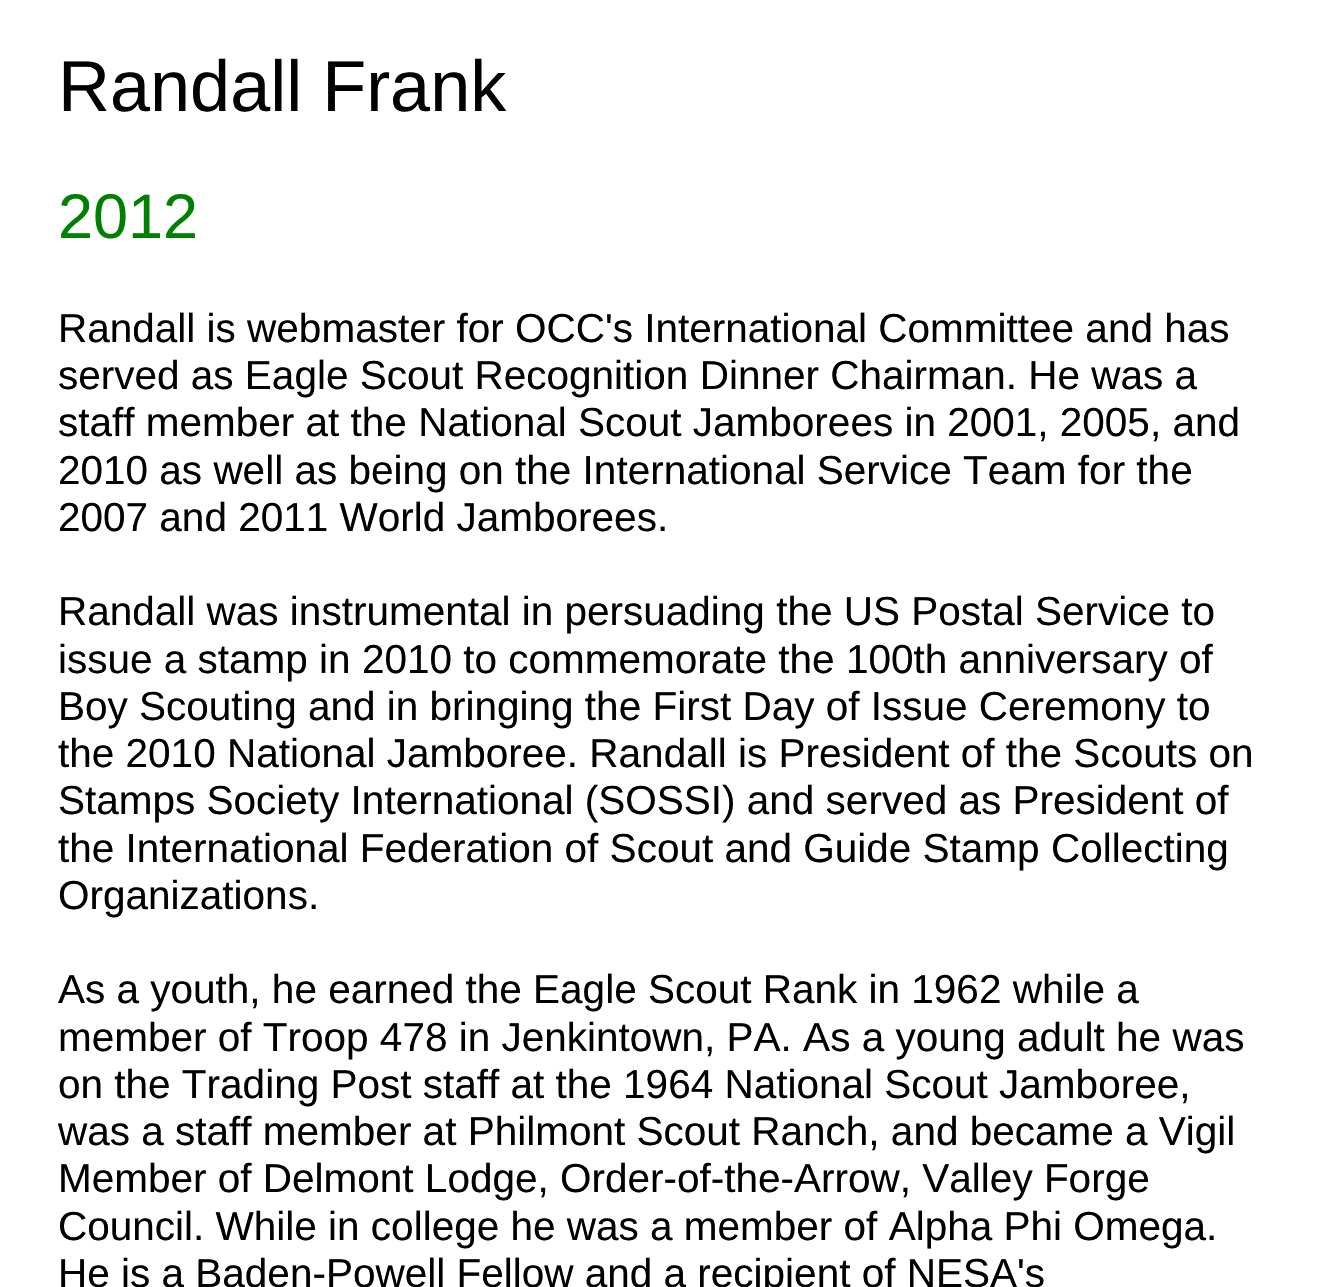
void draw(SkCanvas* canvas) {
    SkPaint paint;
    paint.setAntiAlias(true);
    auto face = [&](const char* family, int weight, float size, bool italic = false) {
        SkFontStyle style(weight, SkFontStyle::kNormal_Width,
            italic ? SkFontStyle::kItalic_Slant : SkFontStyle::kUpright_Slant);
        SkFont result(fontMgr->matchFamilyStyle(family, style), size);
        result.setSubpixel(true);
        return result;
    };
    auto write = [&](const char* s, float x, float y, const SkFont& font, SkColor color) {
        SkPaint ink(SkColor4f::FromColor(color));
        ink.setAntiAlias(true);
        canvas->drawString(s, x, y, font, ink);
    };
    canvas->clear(SK_ColorWHITE);
    auto kFont1 = face("Liberation Sans", 400, 72);
    write("Randall Frank", 58, 111, kFont1, SK_ColorBLACK);
    auto kFont2 = face("Liberation Sans", 400, 63);
    write("2012", 58, 238, kFont2, SkColorSetRGB(0, 128, 0));
    auto kFont3 = face("Liberation Sans", 400, 40.5f);
    write("Randall is webmaster for OCC's International Committee and has", 58, 342, kFont3, SK_ColorBLACK);
    write("served as Eagle Scout Recognition Dinner Chairman. He was a", 58, 389, kFont3, SK_ColorBLACK);
    write("staff member at the National Scout Jamborees in 2001, 2005, and", 58, 436, kFont3, SK_ColorBLACK);
    write("2010 as well as being on the International Service Team for the", 58, 484, kFont3, SK_ColorBLACK);
    write("2007 and 2011 World Jamborees.", 58, 531, kFont3, SK_ColorBLACK);
    write("Randall was instrumental in persuading the US Postal Service to", 58, 625, kFont3, SK_ColorBLACK);
    write("issue a stamp in 2010 to commemorate the 100th anniversary of", 58, 673, kFont3, SK_ColorBLACK);
    write("Boy Scouting and in bringing the First Day of Issue Ceremony to", 58, 720, kFont3, SK_ColorBLACK);
    write("the 2010 National Jamboree. Randall is President of the Scouts on", 58, 767, kFont3, SK_ColorBLACK);
    write("Stamps Society International (SOSSI) and served as President of", 58, 814, kFont3, SK_ColorBLACK);
    write("the International Federation of Scout and Guide Stamp Collecting", 58, 862, kFont3, SK_ColorBLACK);
    write("Organizations.", 58, 909, kFont3, SK_ColorBLACK);
    write("As a youth, he earned the Eagle Scout Rank in 1962 while a", 58, 1003, kFont3, SK_ColorBLACK);
    write("member of Troop 478 in Jenkintown, PA. As a young adult he was", 58, 1051, kFont3, SK_ColorBLACK);
    write("on the Trading Post staff at the 1964 National Scout Jamboree,", 58, 1098, kFont3, SK_ColorBLACK);
    write("was a staff member at Philmont Scout Ranch, and became a Vigil", 58, 1145, kFont3, SK_ColorBLACK);
    write("Member of Delmont Lodge, Order-of-the-Arrow, Valley Forge", 58, 1192, kFont3, SK_ColorBLACK);
    write("Council. While in college he was a member of Alpha Phi Omega.", 58, 1240, kFont3, SK_ColorBLACK);
    write("He is a Baden-Powell Fellow and a recipient of NESA's", 58, 1287, kFont3, SK_ColorBLACK);
}
